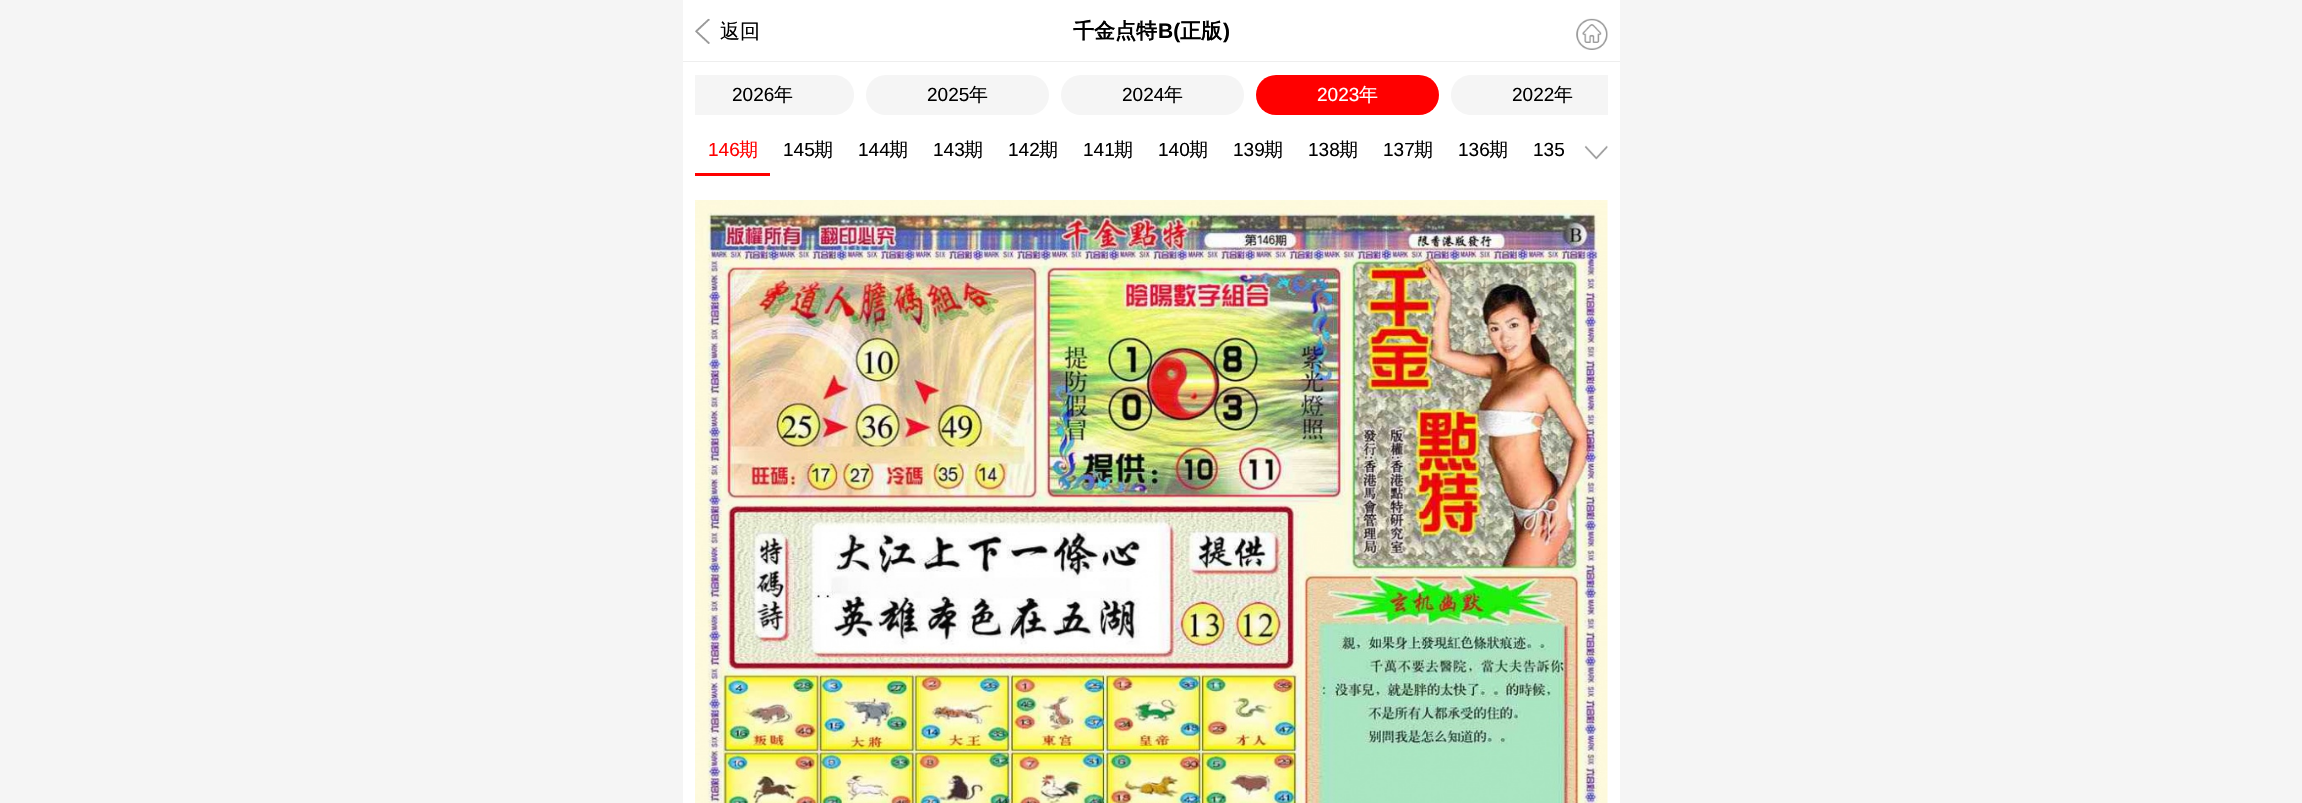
void draw(SkCanvas* canvas) {
    SkPaint paint;
    paint.setAntiAlias(true);
    auto face = [&](const char* family, int weight, float size, bool italic = false) {
        SkFontStyle style(weight, SkFontStyle::kNormal_Width,
            italic ? SkFontStyle::kItalic_Slant : SkFontStyle::kUpright_Slant);
        SkFont result(fontMgr->matchFamilyStyle(family, style), size);
        result.setSubpixel(true);
        return result;
    };
    auto write = [&](const char* s, float x, float y, const SkFont& font, SkColor color) {
        SkPaint ink(SkColor4f::FromColor(color));
        ink.setAntiAlias(true);
        canvas->drawString(s, x, y, font, ink);
    };
    auto block = [&](float x, float y, float w, float h, SkColor color) {
        SkPaint ink(SkColor4f::FromColor(color));
        ink.setAntiAlias(true);
        canvas->drawRect(SkRect::MakeXYWH(x, y, w, h), ink);
    };
    auto card = [&](float x, float y, float w, float h, float radius, SkColor color) {
        SkPaint ink(SkColor4f::FromColor(color));
        ink.setAntiAlias(true);
        canvas->drawRoundRect(SkRect::MakeXYWH(x, y, w, h), radius, radius, ink);
    };
    auto paste = [&](const char* path, float x, float y, float w, float h) {
        auto image = SkImages::DeferredFromEncodedData(SkData::MakeFromFileName(path));
        canvas->drawImageRect(image, SkRect::MakeXYWH(x, y, w, h), SkSamplingOptions());
    };
    canvas->clear(SkColorSetRGB(245, 245, 245));
    block(683, 0, 937, 803, SK_ColorWHITE);
    block(683, 61, 937, 1, SkColorSetRGB(238, 238, 238));
    paste("pic1.png", 695, 18, 15, 26);
    auto kFont1 = face("WenQuanYi Zen Hei", 500, 20);
    write("返回", 720, 38, kFont1, SK_ColorBLACK);
    auto kFont2 = face("WenQuanYi Zen Hei", 700, 21);
    write("千金点特", 1073, 38, kFont2, SK_ColorBLACK);
    auto kFont3 = face("Liberation Sans", 700, 21);
    write("B(", 1158, 38, kFont3, SK_ColorBLACK);
    write("正版", 1180, 38, kFont2, SK_ColorBLACK);
    write(")", 1223, 38, kFont3, SK_ColorBLACK);
    paste("pic2.png", 1576, 18, 32, 32);
    paint.setColor(SkColorSetRGB(245, 245, 245));
    canvas->drawPath(SkPathBuilder().moveTo(695, 75).lineTo(834, 75).cubicTo(845, 75, 854, 84, 854, 95).cubicTo(854, 106, 845, 115, 834, 115).lineTo(695, 115).close().detach(), paint);
    auto kFont4 = face("Liberation Sans", 400, 19);
    write("2026", 732, 101, kFont4, SK_ColorBLACK);
    auto kFont5 = face("WenQuanYi Zen Hei", 500, 19);
    write("年", 774, 101, kFont5, SK_ColorBLACK);
    card(866, 75, 183, 40, 20, SkColorSetRGB(245, 245, 245));
    write("2025", 927, 101, kFont4, SK_ColorBLACK);
    write("年", 969, 101, kFont5, SK_ColorBLACK);
    card(1061, 75, 183, 40, 20, SkColorSetRGB(245, 245, 245));
    write("2024", 1122, 101, kFont4, SK_ColorBLACK);
    write("年", 1164, 101, kFont5, SK_ColorBLACK);
    card(1256, 75, 183, 40, 20, SkColorSetRGB(255, 0, 0));
    write("2023", 1317, 101, kFont4, SK_ColorWHITE);
    write("年", 1359, 101, kFont5, SK_ColorWHITE);
    canvas->drawPath(SkPathBuilder().moveTo(1471, 75).lineTo(1608, 75).lineTo(1608, 115).lineTo(1471, 115).cubicTo(1460, 115, 1451, 106, 1451, 95).cubicTo(1451, 84, 1460, 75, 1471, 75).close().detach(), paint);
    write("2022", 1512, 101, kFont4, SK_ColorBLACK);
    write("年", 1554, 101, kFont5, SK_ColorBLACK);
    block(695, 173, 75, 3, SkColorSetRGB(255, 0, 0));
    write("146", 708, 156, kFont4, SkColorSetRGB(255, 0, 0));
    write("期", 739, 156, kFont5, SkColorSetRGB(255, 0, 0));
    write("145", 783, 156, kFont4, SK_ColorBLACK);
    write("期", 814, 156, kFont5, SK_ColorBLACK);
    write("144", 858, 156, kFont4, SK_ColorBLACK);
    write("期", 889, 156, kFont5, SK_ColorBLACK);
    write("143", 933, 156, kFont4, SK_ColorBLACK);
    write("期", 964, 156, kFont5, SK_ColorBLACK);
    write("142", 1008, 156, kFont4, SK_ColorBLACK);
    write("期", 1039, 156, kFont5, SK_ColorBLACK);
    write("141", 1083, 156, kFont4, SK_ColorBLACK);
    write("期", 1114, 156, kFont5, SK_ColorBLACK);
    write("140", 1158, 156, kFont4, SK_ColorBLACK);
    write("期", 1189, 156, kFont5, SK_ColorBLACK);
    write("139", 1233, 156, kFont4, SK_ColorBLACK);
    write("期", 1264, 156, kFont5, SK_ColorBLACK);
    write("138", 1308, 156, kFont4, SK_ColorBLACK);
    write("期", 1339, 156, kFont5, SK_ColorBLACK);
    write("137", 1383, 156, kFont4, SK_ColorBLACK);
    write("期", 1414, 156, kFont5, SK_ColorBLACK);
    write("136", 1458, 156, kFont4, SK_ColorBLACK);
    write("期", 1489, 156, kFont5, SK_ColorBLACK);
    write("135", 1533, 156, kFont4, SK_ColorBLACK);
    paste("pic3.png", 1584, 145, 24, 15);
    paste("pic4.png", 695, 200, 913, 603);
}
